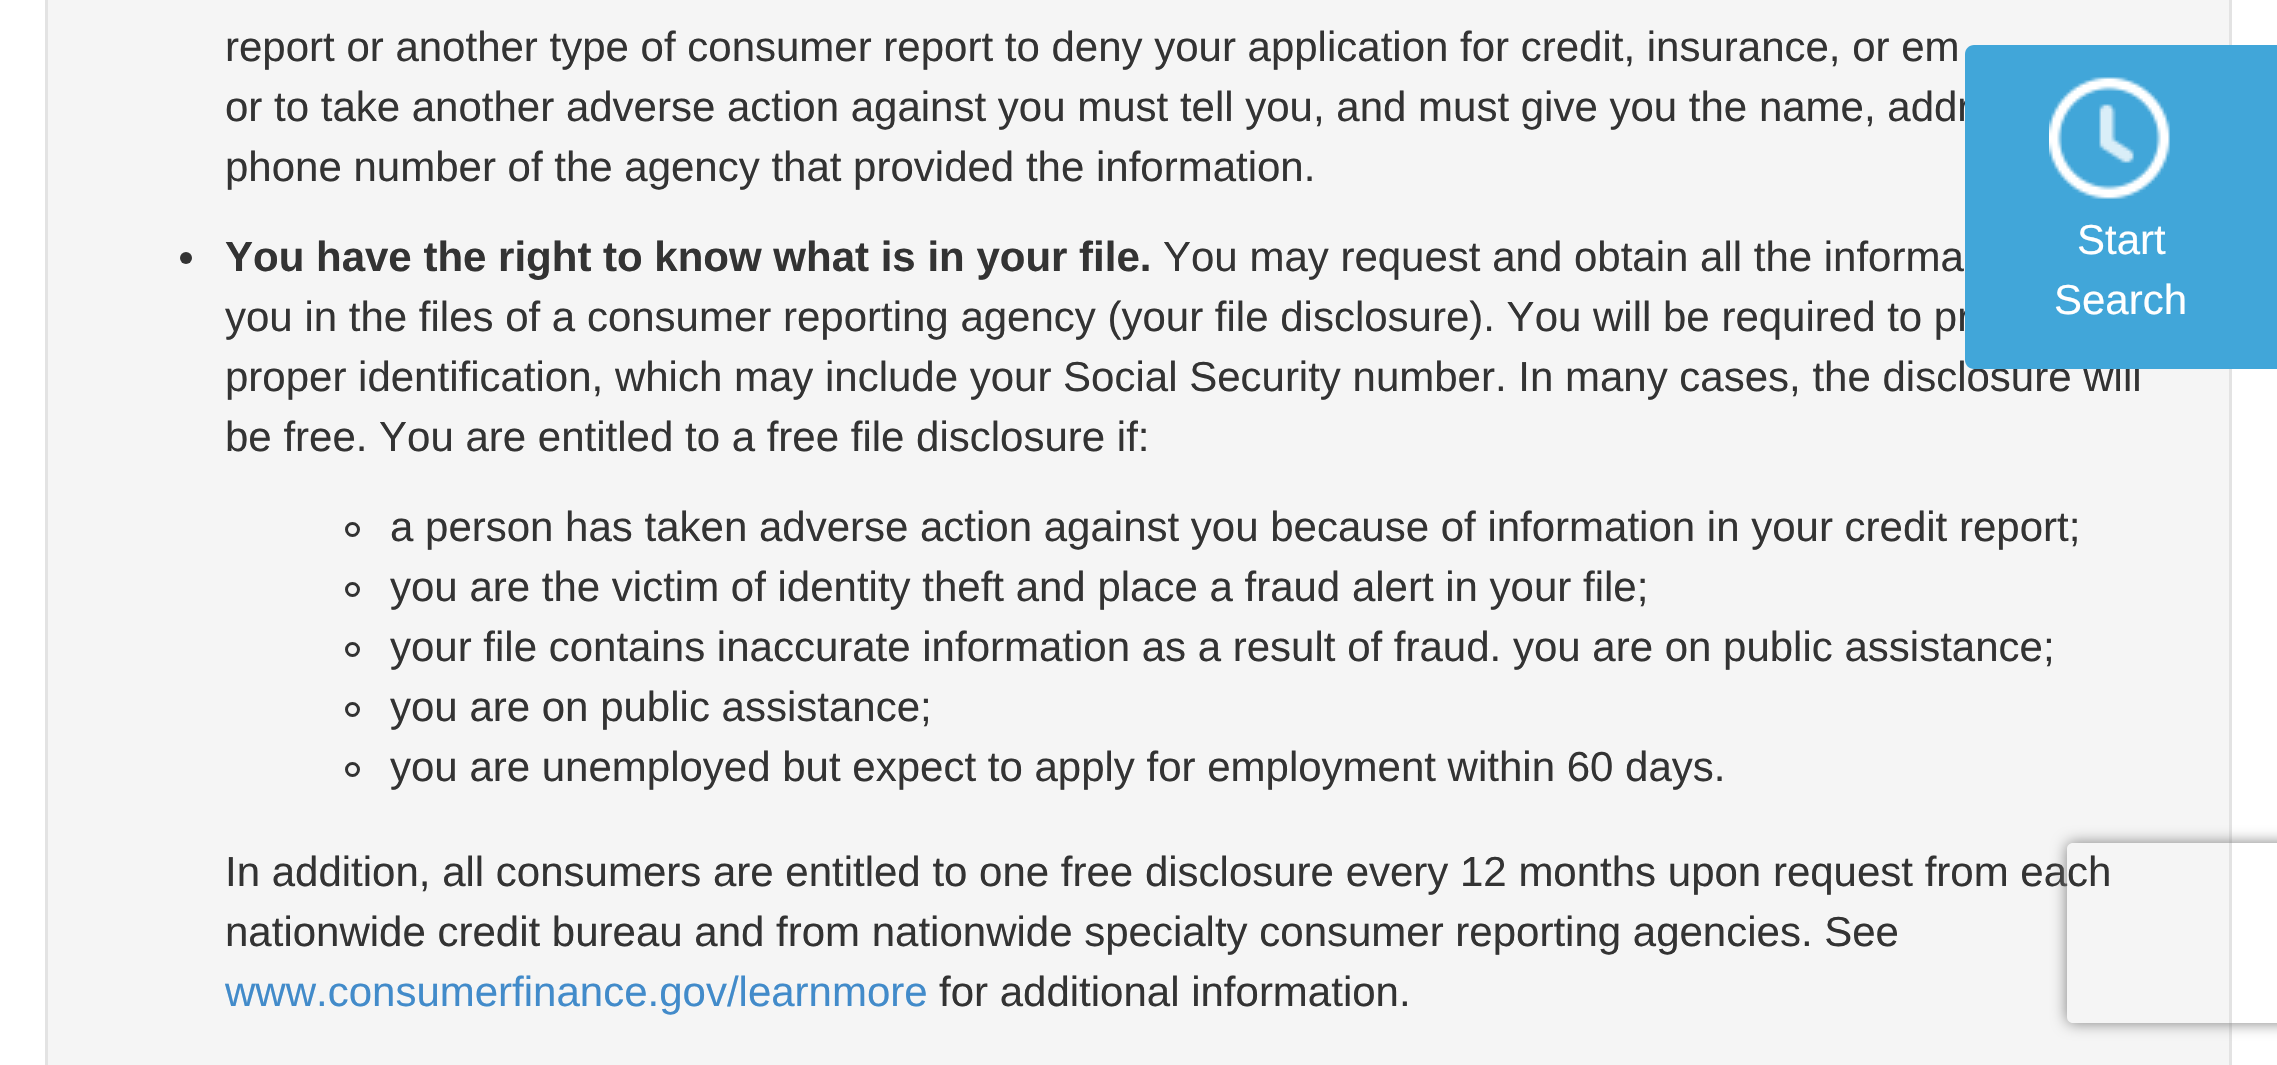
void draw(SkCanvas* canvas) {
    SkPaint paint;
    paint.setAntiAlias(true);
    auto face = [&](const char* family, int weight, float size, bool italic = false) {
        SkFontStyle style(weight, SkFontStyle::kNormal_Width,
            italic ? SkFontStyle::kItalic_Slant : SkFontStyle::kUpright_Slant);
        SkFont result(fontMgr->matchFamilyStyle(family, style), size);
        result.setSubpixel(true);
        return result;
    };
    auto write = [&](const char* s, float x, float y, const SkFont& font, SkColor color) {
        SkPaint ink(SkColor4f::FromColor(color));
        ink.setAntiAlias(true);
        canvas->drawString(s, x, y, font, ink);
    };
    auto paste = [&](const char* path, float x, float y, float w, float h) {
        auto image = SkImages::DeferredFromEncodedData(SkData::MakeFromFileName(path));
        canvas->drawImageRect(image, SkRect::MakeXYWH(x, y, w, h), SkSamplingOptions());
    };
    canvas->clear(SK_ColorWHITE);
    paint.setColor(SkColorSetRGB(245, 245, 245));
    canvas->drawRect(SkRect::MakeXYWH(46.5f, -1.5f, 2184, 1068), paint);
    paint.setStyle(SkPaint::kStroke_Style);
    paint.setStrokeWidth(3);
    paint.setColor(SkColorSetRGB(227, 227, 227));
    canvas->drawRect(SkRect::MakeXYWH(46.5f, -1.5f, 2184, 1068), paint);
    auto kFont1 = face("Liberation Sans", 400, 42);
    write("report or another type of consumer report to deny your application for credit, insurance, or em", 225, 61, kFont1, SkColorSetRGB(51, 51, 51));
    write("or to take another adverse action against you must tell you, and must give you the name, addr", 225, 121, kFont1, SkColorSetRGB(51, 51, 51));
    write("phone number of the agency that provided the information.", 225, 181, kFont1, SkColorSetRGB(51, 51, 51));
    paint.setStyle(SkPaint::kFill_Style);
    paint.setColor(SkColorSetRGB(51, 51, 51));
    canvas->drawCircle(186, 258, 6, paint);
    auto kFont2 = face("Liberation Sans", 700, 42);
    write("You have the right to know what is in your file.", 225, 271, kFont2, SkColorSetRGB(51, 51, 51));
    write("You may request and obtain all the informa", 1163, 271, kFont1, SkColorSetRGB(51, 51, 51));
    write("you in the files of a consumer reporting agency (your file disclosure). You will be required to pr", 225, 331, kFont1, SkColorSetRGB(51, 51, 51));
    write("proper identification, which may include your Social Security number. In many cases, the disclosure will", 225, 391, kFont1, SkColorSetRGB(51, 51, 51));
    write("be free. You are entitled to a free file disclosure if:", 225, 451, kFont1, SkColorSetRGB(51, 51, 51));
    paint.setStyle(SkPaint::kStroke_Style);
    canvas->drawCircle(352.5f, 529.5f, 6, paint);
    write("a person has taken adverse action against you because of information in your credit report;", 390, 541, kFont1, SkColorSetRGB(51, 51, 51));
    canvas->drawCircle(352.5f, 589.5f, 6, paint);
    write("you are the victim of identity theft and place a fraud alert in your file;", 390, 601, kFont1, SkColorSetRGB(51, 51, 51));
    canvas->drawCircle(352.5f, 649.5f, 6, paint);
    write("your file contains inaccurate information as a result of fraud. you are on public assistance;", 390, 661, kFont1, SkColorSetRGB(51, 51, 51));
    canvas->drawCircle(352.5f, 709.5f, 6, paint);
    write("you are on public assistance;", 390, 721, kFont1, SkColorSetRGB(51, 51, 51));
    canvas->drawCircle(352.5f, 769.5f, 6, paint);
    write("you are unemployed but expect to apply for employment within 60 days.", 390, 781, kFont1, SkColorSetRGB(51, 51, 51));
    write("In addition, all consumers are entitled to one free disclosure every 12 months upon request from each", 225, 886, kFont1, SkColorSetRGB(51, 51, 51));
    write("nationwide credit bureau and from nationwide specialty consumer reporting agencies. See", 225, 946, kFont1, SkColorSetRGB(51, 51, 51));
    write("www.consumerfinance.gov/learnmore", 225, 1006, kFont1, SkColorSetRGB(66, 139, 202));
    write("for additional information.", 939, 1006, kFont1, SkColorSetRGB(51, 51, 51));
    paint.setStyle(SkPaint::kFill_Style);
    paint.setColor(SkColorSetRGB(65, 166, 217));
    canvas->drawPath(SkPathBuilder().moveTo(1974, 45).lineTo(2277, 45).lineTo(2277, 369).lineTo(1974, 369).cubicTo(1969, 369, 1965, 365, 1965, 360).lineTo(1965, 54).cubicTo(1965, 49, 1969, 45, 1974, 45).close().detach(), paint);
    paste("pic1.png", 2049, 77, 121, 122);
    write("Start", 2077, 254, kFont1, SK_ColorWHITE);
    write("Search", 2054, 314, kFont1, SK_ColorWHITE);
    canvas->save();
    canvas->clipPath(SkPathBuilder(SkPathFillType::kEvenOdd).moveTo(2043, 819).lineTo(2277, 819).lineTo(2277, 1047).lineTo(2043, 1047).close().moveTo(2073, 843).lineTo(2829, 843).cubicTo(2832.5f, 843, 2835, 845.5f, 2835, 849).lineTo(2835, 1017).cubicTo(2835, 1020.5f, 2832.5f, 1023, 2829, 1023).lineTo(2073, 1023).cubicTo(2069.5f, 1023, 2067, 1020.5f, 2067, 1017).lineTo(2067, 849).cubicTo(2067, 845.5f, 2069.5f, 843, 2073, 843).close().detach(), true);
    paint.setColor(SkColorSetRGB(128, 128, 128));
    paint.setMaskFilter(SkMaskFilter::MakeBlur(kNormal_SkBlurStyle, 7.5f));
    canvas->drawRoundRect(SkRect::MakeXYWH(2067, 843, 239, 180), 6, 6, paint);
    paint.setMaskFilter(nullptr);
    canvas->restore();
}
